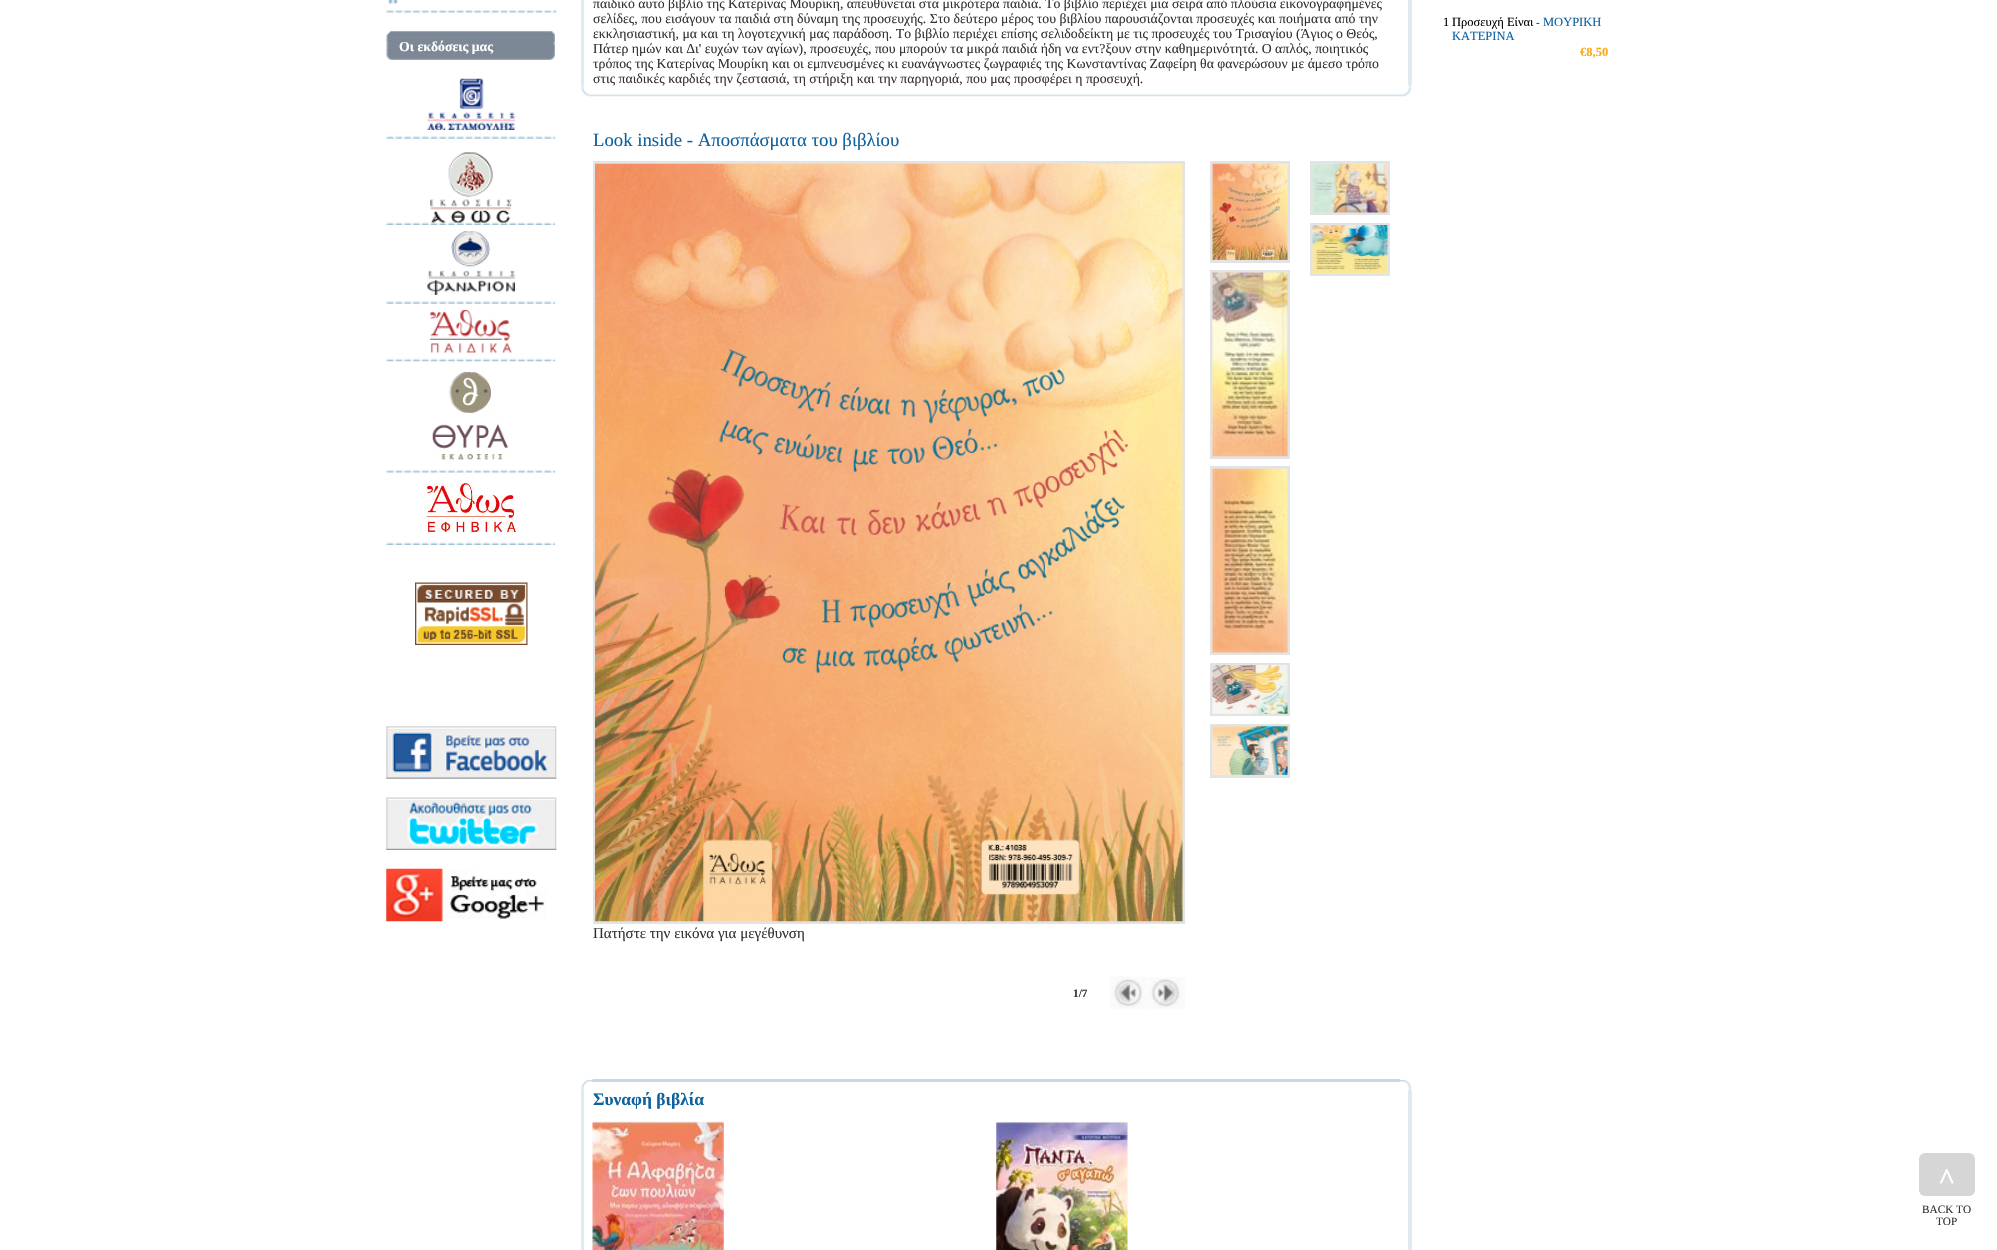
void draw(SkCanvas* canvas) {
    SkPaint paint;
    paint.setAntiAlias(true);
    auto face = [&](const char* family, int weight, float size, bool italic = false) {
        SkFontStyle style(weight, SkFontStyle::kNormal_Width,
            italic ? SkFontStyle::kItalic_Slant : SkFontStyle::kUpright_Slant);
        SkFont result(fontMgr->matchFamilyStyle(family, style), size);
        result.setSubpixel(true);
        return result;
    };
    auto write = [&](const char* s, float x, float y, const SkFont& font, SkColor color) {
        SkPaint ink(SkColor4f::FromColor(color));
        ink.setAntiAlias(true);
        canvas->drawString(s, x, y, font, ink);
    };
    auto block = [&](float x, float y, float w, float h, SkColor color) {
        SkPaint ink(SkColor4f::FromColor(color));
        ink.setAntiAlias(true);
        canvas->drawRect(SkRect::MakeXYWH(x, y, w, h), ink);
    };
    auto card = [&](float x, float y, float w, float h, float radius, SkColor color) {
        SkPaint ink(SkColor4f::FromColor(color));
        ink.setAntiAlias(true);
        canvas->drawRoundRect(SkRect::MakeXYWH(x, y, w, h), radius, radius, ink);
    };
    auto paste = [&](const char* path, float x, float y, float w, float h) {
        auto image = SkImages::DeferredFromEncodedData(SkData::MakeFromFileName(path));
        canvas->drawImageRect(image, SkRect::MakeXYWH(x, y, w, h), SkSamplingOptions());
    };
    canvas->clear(SK_ColorWHITE);
    paste("pic1.png", 388, 0, 10, 4);
    paste("pic2.png", 386, 10, 171, 3);
    paste("pic3.png", 386, 31, 169, 29);
    auto kFont1 = face("Liberation Serif", 700, 13.75f);
    write("Οι εκδόσεις μας", 399, 51, kFont1, SK_ColorWHITE);
    paste("pic4.png", 427, 78, 88, 52);
    paste("pic5.png", 386, 136, 169, 3);
    paste("pic7.png", 386, 222, 169, 3);
    paste("pic6.png", 430, 152, 82, 71);
    paste("pic8.png", 427, 231, 88, 64);
    paste("pic5.png", 386, 301, 169, 3);
    paste("pic9.png", 430, 310, 82, 43);
    paste("pic10.png", 386, 358, 169, 4);
    paste("pic11.png", 432, 372, 76, 88);
    paste("pic12.png", 386, 470, 169, 3);
    paste("pic13.png", 425, 483, 92, 49);
    paste("pic7.png", 386, 542, 169, 3);
    paste("pic14.png", 415, 582, 113, 63);
    paste("pic15.png", 386, 726, 171, 53);
    paste("pic16.png", 386, 797, 171, 53);
    paste("pic17.png", 386, 868, 160, 54);
    block(581, 0, 3, 85, SkColorSetRGB(223, 234, 241));
    auto kFont2 = face("Liberation Serif", 400, 13.75f);
    write("παιδικό αυτό βιβλίο της Κατερίνας Μουρίκη, απευθύνεται στα μικρότερα παιδιά. Το βιβλίο περιέχει μια σειρά από πλούσια εικονογραφημένες", 593, 8, kFont2, SkColorSetRGB(51, 51, 51));
    write("σελίδες, που εισάγουν τα παιδιά στη δύναμη της προσευχής. Στο δεύτερο μέρος του βιβλίου παρουσιάζονται προσευχές και ποιήματα από την", 593, 23, kFont2, SkColorSetRGB(51, 51, 51));
    write("εκκλησιαστική, μα και τη λογοτεχνική μας παράδοση. Το βιβλίο περιέχει επίσης σελιδοδείκτη με τις προσευχές του Τρισαγίου (Άγιος ο Θεός,", 593, 38, kFont2, SkColorSetRGB(51, 51, 51));
    write("Πάτερ ημών και Δι' ευχών των αγίων), προσευχές, που μπορούν τα μικρά παιδιά ήδη να εντ?ξουν στην καθημερινότητά. Ο απλός, ποιητικός", 593, 53, kFont2, SkColorSetRGB(51, 51, 51));
    write("τρόπος της Κατερίνας Μουρίκη και οι εμπνευσμένες κι ευανάγνωστες ζωγραφιές της Κωνσταντίνας Ζαφείρη θα φανερώσουν με άμεσο τρόπο", 593, 68, kFont2, SkColorSetRGB(51, 51, 51));
    write("στις παιδικές καρδιές την ζεστασιά, τη στήριξη και την παρηγοριά, που μας προσφέρει η προσευχή.", 593, 83, kFont2, SkColorSetRGB(51, 51, 51));
    block(1408, 0, 4, 85, SkColorSetRGB(223, 234, 241));
    paste("pic19.png", 592, 93, 808, 4);
    paste("pic18.png", 581, 85, 12, 12);
    paste("pic20.png", 1400, 85, 12, 12);
    auto kFont3 = face("Liberation Serif", 400, 18.75f);
    write("Look inside - Αποσπάσματα του βιβλίου", 593, 146, kFont3, SkColorSetRGB(13, 97, 159));
    paint.setStyle(SkPaint::kStroke_Style);
    paint.setStrokeWidth(3);
    paint.setColor(SkColorSetRGB(226, 227, 229));
    canvas->drawRect(SkRect::MakeXYWH(1211.5f, 162.5f, 77, 99), paint);
    paste("pic21.png", 1212, 163, 76, 97);
    canvas->drawRect(SkRect::MakeXYWH(1211.5f, 271.5f, 77, 186), paint);
    paste("pic22.png", 1212, 272, 76, 185);
    canvas->drawRect(SkRect::MakeXYWH(1211.5f, 467.5f, 77, 186), paint);
    paste("pic23.png", 1212, 468, 76, 185);
    canvas->drawRect(SkRect::MakeXYWH(1211.5f, 664.5f, 77, 50), paint);
    paste("pic24.png", 1212, 665, 76, 49);
    canvas->drawRect(SkRect::MakeXYWH(1211.5f, 725.5f, 77, 51), paint);
    paste("pic25.png", 1212, 726, 76, 49);
    canvas->drawRect(SkRect::MakeXYWH(1311.5f, 162.5f, 77, 51), paint);
    paste("pic26.png", 1312, 163, 76, 50);
    canvas->drawRect(SkRect::MakeXYWH(1311.5f, 224.5f, 77, 50), paint);
    paste("pic27.png", 1312, 225, 76, 49);
    canvas->drawRect(SkRect::MakeXYWH(594.5f, 162.5f, 589, 760), paint);
    paste("pic28.png", 595, 163, 588, 759);
    auto kFont4 = face("Liberation Serif", 400, 15);
    write("Πατήστε την εικόνα για μεγέθυνση", 593, 938, kFont4, SkColorSetRGB(51, 51, 51));
    auto kFont5 = face("Liberation Serif", 700, 11.25f);
    write("1/7", 1073, 997, kFont5, SkColorSetRGB(51, 51, 51));
    paste("pic29.png", 1110, 976, 38, 33);
    paste("pic30.png", 1148, 977, 37, 32);
    block(592, 1079, 808, 3, SkColorSetRGB(197, 217, 230));
    paste("pic31.png", 581, 1079, 12, 11);
    paste("pic32.png", 1400, 1079, 12, 11);
    block(581, 1090, 3, 160, SkColorSetRGB(223, 234, 241));
    auto kFont6 = face("Liberation Serif", 700, 17.5f);
    write("Συναφή βιβλία", 593, 1105, kFont6, SkColorSetRGB(13, 97, 159));
    paste("pic33.png", 592, 1121, 132, 129);
    paste("pic34.png", 996, 1121, 132, 129);
    block(1408, 1090, 4, 160, SkColorSetRGB(223, 234, 241));
    auto kFont7 = face("Liberation Serif", 400, 12.5f);
    write("1", 1443, 26, kFont7, SK_ColorBLACK);
    write("Προσευχή Είναι", 1452, 26, kFont7, SK_ColorBLACK);
    auto kFont8 = face("Liberation Serif", 400, 11.25f);
    write("-", 1536, 26, kFont8, SkColorSetRGB(51, 51, 51));
    write("ΜΟΥΡΙΚΗ", 1543, 26, kFont7, SkColorSetRGB(13, 97, 159));
    write("ΚΑΤΕΡΙΝΑ", 1452, 40, kFont7, SkColorSetRGB(13, 97, 159));
    auto kFont9 = face("Liberation Serif", 700, 12.5f);
    write("€8,50", 1580, 56, kFont9, SkColorSetRGB(250, 169, 25));
    card(1919, 1153, 56, 43, 6, SkColorSetRGB(214, 214, 214));
    auto kFont10 = face("Liberation Serif", 700, 30);
    write("^", 1938, 1189, kFont10, SK_ColorWHITE);
    write("BACK TO", 1922, 1213, kFont8, SkColorSetRGB(51, 51, 51));
    write("TOP", 1936, 1225, kFont8, SkColorSetRGB(51, 51, 51));
}
